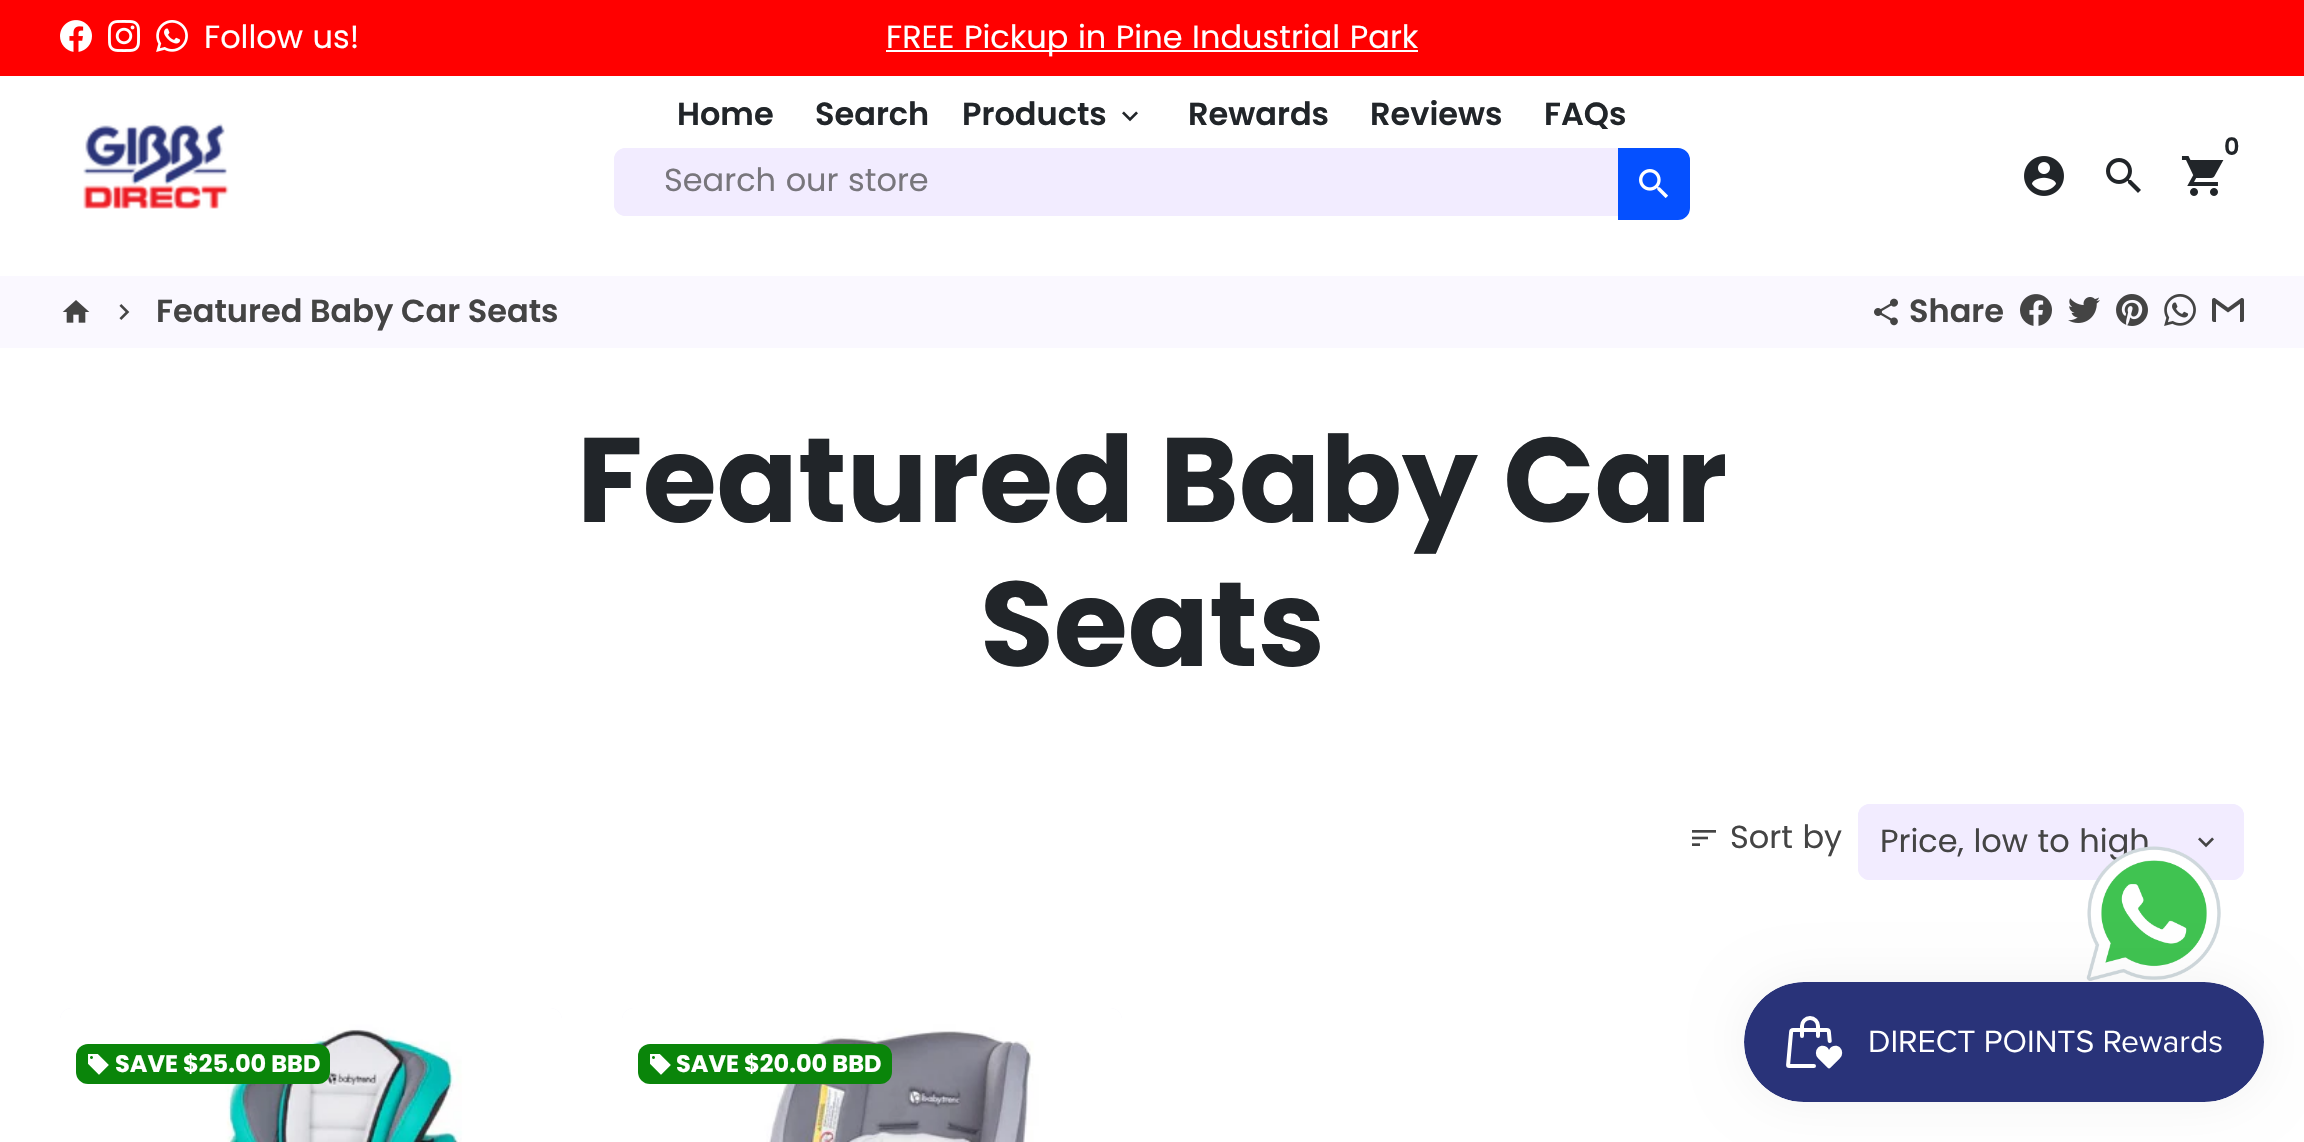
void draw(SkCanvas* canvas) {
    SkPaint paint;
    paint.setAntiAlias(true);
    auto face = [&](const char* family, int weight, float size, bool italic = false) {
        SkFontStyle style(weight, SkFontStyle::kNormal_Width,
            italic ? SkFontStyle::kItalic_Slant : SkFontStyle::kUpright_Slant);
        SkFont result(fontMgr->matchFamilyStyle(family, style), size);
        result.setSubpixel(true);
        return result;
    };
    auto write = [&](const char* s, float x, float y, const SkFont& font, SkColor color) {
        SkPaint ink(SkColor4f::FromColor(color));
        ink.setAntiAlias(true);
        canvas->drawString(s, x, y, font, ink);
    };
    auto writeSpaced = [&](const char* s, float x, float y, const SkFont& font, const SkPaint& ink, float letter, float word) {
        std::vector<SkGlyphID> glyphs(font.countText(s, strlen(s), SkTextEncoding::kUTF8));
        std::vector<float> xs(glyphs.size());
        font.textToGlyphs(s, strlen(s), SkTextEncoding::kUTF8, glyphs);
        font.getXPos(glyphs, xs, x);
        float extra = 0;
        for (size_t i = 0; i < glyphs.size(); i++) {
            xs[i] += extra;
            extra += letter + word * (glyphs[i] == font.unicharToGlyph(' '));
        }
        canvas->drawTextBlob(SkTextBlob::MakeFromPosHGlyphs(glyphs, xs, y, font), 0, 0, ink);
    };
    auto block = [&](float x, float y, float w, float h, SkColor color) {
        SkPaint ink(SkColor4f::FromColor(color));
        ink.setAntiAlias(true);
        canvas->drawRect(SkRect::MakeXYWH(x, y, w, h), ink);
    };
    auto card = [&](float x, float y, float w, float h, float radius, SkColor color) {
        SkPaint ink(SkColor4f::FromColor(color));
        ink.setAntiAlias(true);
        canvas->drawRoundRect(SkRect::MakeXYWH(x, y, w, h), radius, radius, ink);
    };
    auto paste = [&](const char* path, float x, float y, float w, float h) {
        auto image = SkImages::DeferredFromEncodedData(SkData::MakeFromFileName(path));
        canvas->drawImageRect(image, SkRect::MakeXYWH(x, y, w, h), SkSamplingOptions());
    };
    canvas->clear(SK_ColorWHITE);
    block(0, 0, 2304, 76, SkColorSetRGB(255, 0, 0));
    paste("pic1.png", 60, 20, 32, 32);
    paste("pic2.png", 108, 20, 32, 32);
    paste("pic3.png", 156, 20, 32, 32);
    auto kFont1 = face("Poppins", 400, 32);
    paint.setColor(SK_ColorWHITE);
    writeSpaced("Follow us!", 204, 48, kFont1, paint, 0, 1);
    block(886, 50, 532, 2, SK_ColorWHITE);
    writeSpaced("FREE Pickup in Pine Industrial Park", 886, 48, kFont1, paint, 0, 1);
    paste("pic4.png", 83, 123, 146, 87);
    auto kFont2 = face("Poppins", 600, 32);
    write("Home", 677, 125, kFont2, SkColorSetRGB(33, 37, 41));
    write("Search", 815, 125, kFont2, SkColorSetRGB(33, 37, 41));
    write("Products", 962, 125, kFont2, SkColorSetRGB(33, 37, 41));
    paste("pic5.png", 1122, 111, 16, 11);
    write("Rewards", 1188, 125, kFont2, SkColorSetRGB(33, 37, 41));
    write("Reviews", 1370, 125, kFont2, SkColorSetRGB(33, 37, 41));
    write("FAQs", 1544, 125, kFont2, SkColorSetRGB(33, 37, 41));
    paint.setColor(SkColorSetRGB(242, 236, 255));
    canvas->drawPath(SkPathBuilder().moveTo(626, 148).lineTo(1618, 148).lineTo(1618, 216).lineTo(626, 216).cubicTo(619.5f, 216, 614, 210.5f, 614, 204).lineTo(614, 160).cubicTo(614, 153.5f, 619.5f, 148, 626, 148).close().detach(), paint);
    canvas->drawPath(SkPathBuilder(SkPathFillType::kEvenOdd).moveTo(626, 148).lineTo(1618, 148).lineTo(1618, 216).lineTo(626, 216).cubicTo(619, 216, 614, 211, 614, 204).lineTo(614, 160).cubicTo(614, 153, 619, 148, 626, 148).close().moveTo(626, 150).lineTo(1618, 150).lineTo(1618, 214).lineTo(626, 214).cubicTo(620, 214, 616, 210, 616, 204).lineTo(616, 160).cubicTo(616, 154, 620, 150, 626, 150).close().detach(), paint);
    paint.setColor(SkColorSetRGB(120, 118, 124));
    writeSpaced("Search our store", 664, 191, kFont1, paint, 0, 1);
    paint.setColor(SkColorSetRGB(5, 80, 255));
    canvas->drawPath(SkPathBuilder().moveTo(1619, 149).lineTo(1678, 149).cubicTo(1684, 149, 1689, 154, 1689, 160).lineTo(1689, 208).cubicTo(1689, 214, 1684, 219, 1678, 219).lineTo(1619, 219).close().detach(), paint);
    paint.setStyle(SkPaint::kStroke_Style);
    paint.setStrokeWidth(2);
    canvas->drawPath(SkPathBuilder().moveTo(1619, 149).lineTo(1678, 149).cubicTo(1684, 149, 1689, 154, 1689, 160).lineTo(1689, 208).cubicTo(1689, 214, 1684, 219, 1678, 219).lineTo(1619, 219).close().detach(), paint);
    paste("pic6.png", 1639, 169, 29, 29);
    auto kFont3 = face("Poppins", 600, 24);
    write("0", 2224, 155, kFont3, SkColorSetRGB(33, 37, 41));
    paste("pic7.png", 2181, 156, 43, 40);
    paste("pic8.png", 2024, 156, 40, 40);
    paste("pic9.png", 2106, 158, 35, 35);
    block(0, 276, 2304, 72, SkColorSetRGB(250, 248, 255));
    paste("pic10.png", 62, 300, 28, 23);
    paste("pic11.png", 119, 304, 11, 16);
    write("Featured Baby Car Seats", 156, 322, kFont2, SkColorSetRGB(68, 68, 68));
    paste("pic12.png", 1874, 298, 24, 28);
    write("Share", 1909, 322, kFont2, SkColorSetRGB(68, 68, 68));
    paste("pic13.png", 2020, 294, 32, 32);
    paste("pic14.png", 2068, 297, 32, 26);
    paste("pic15.png", 2116, 294, 32, 32);
    paste("pic16.png", 2164, 294, 32, 32);
    paste("pic17.png", 2212, 298, 32, 24);
    auto kFont4 = face("Poppins", 700, 120);
    write("Featured Baby Car", 577, 522, kFont4, SkColorSetRGB(33, 37, 41));
    write("Seats", 980, 666, kFont4, SkColorSetRGB(33, 37, 41));
    paste("pic18.png", 1692, 830, 24, 16);
    paint.setStyle(SkPaint::kFill_Style);
    paint.setColor(SkColorSetRGB(68, 68, 68));
    writeSpaced("Sort by", 1730, 848, kFont1, paint, 0, 1);
    card(1858, 804, 386, 76, 12, SkColorSetRGB(242, 236, 255));
    paste("pic19.png", 2198, 837, 16, 11);
    paint.setStyle(SkPaint::kStroke_Style);
    paint.setColor(SkColorSetRGB(242, 236, 255));
    canvas->drawRoundRect(SkRect::MakeXYWH(1859, 805, 384, 74), 11, 11, paint);
    paint.setStyle(SkPaint::kFill_Style);
    paint.setColor(SkColorSetRGB(68, 68, 68));
    writeSpaced("Price, low to high", 1880, 852, kFont1, paint, 0, 1);
    paint.setColor(SkColorSetRGB(250, 248, 255));
    canvas->drawPath(SkPathBuilder().moveTo(72, 1008).lineTo(550, 1008).cubicTo(556.5f, 1008, 562, 1013.5f, 562, 1020).lineTo(562, 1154).lineTo(60, 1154).lineTo(60, 1020).cubicTo(60, 1013.5f, 65.5f, 1008, 72, 1008).close().detach(), paint);
    paste("pic20.png", 60, 1008, 502, 134);
    card(76, 1044, 254, 40, 12, SkColorSetRGB(10, 133, 10));
    paste("pic21.png", 88, 1054, 21, 21);
    auto kFont5 = face("Poppins", 700, 24);
    write("SAVE $25.00 BBD", 115, 1072, kFont5, SK_ColorWHITE);
    canvas->drawPath(SkPathBuilder().moveTo(634, 1008).lineTo(1110, 1008).cubicTo(1116.5f, 1008, 1122, 1013.5f, 1122, 1020).lineTo(1122, 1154).lineTo(622, 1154).lineTo(622, 1020).cubicTo(622, 1013.5f, 627.5f, 1008, 634, 1008).close().detach(), paint);
    paste("pic22.png", 622, 1008, 500, 134);
    card(638, 1044, 254, 40, 12, SkColorSetRGB(10, 133, 10));
    paste("pic21.png", 650, 1054, 21, 21);
    write("SAVE $20.00 BBD", 676, 1072, kFont5, SK_ColorWHITE);
    paste("pic23.png", 2086, 846, 135, 135);
    paint.setColor(SkColorSetARGB(13, 0, 0, 0));
    paint.setMaskFilter(SkMaskFilter::MakeBlur(kNormal_SkBlurStyle, 25));
    canvas->drawRoundRect(SkRect::MakeXYWH(1744, 982, 520, 120), 60, 60, paint);
    paint.setMaskFilter(nullptr);
    paste("pic24.png", 1744, 982, 520, 120);
}
